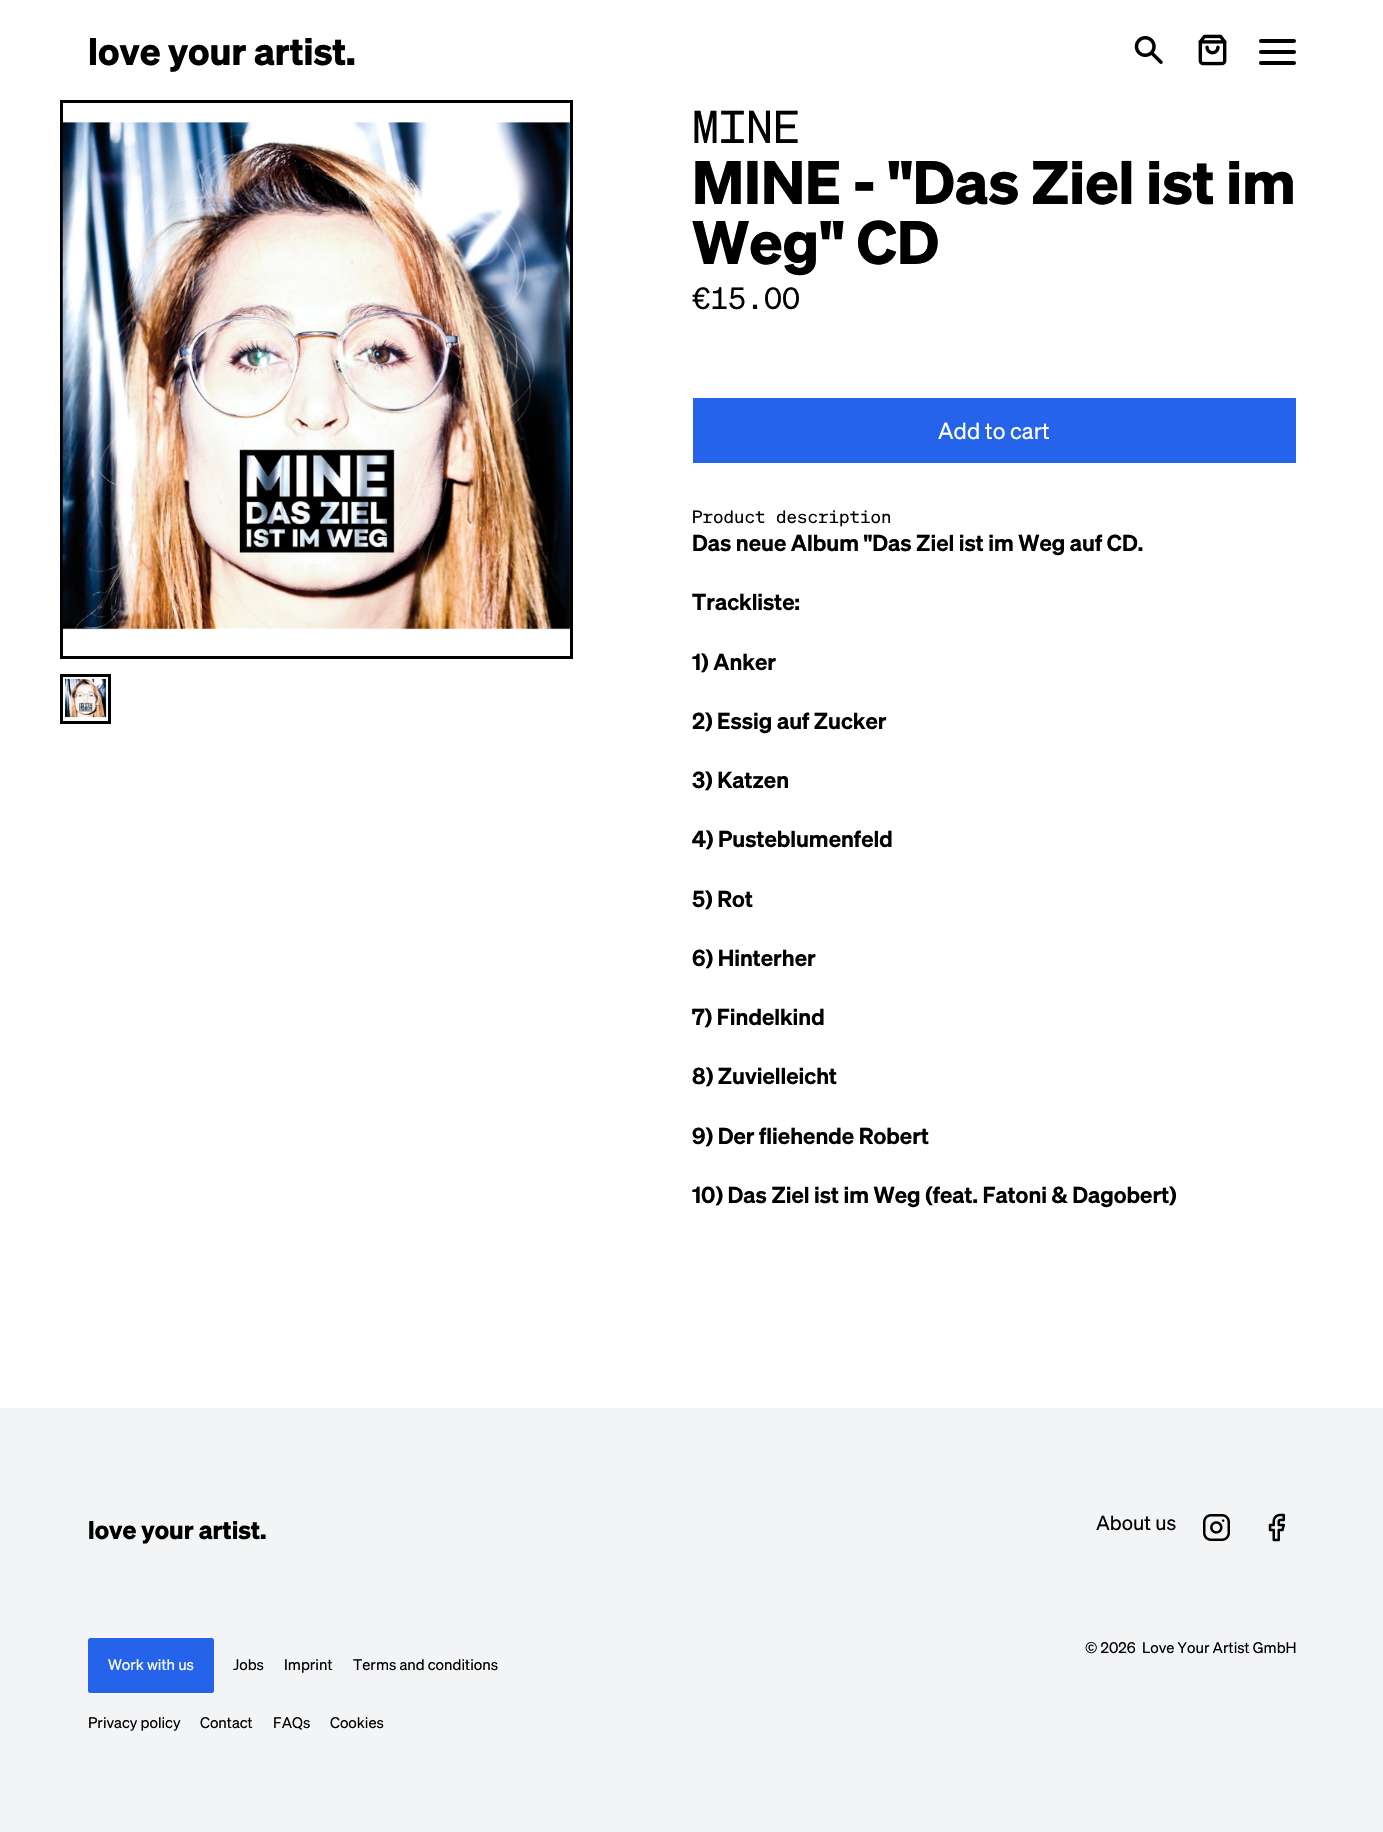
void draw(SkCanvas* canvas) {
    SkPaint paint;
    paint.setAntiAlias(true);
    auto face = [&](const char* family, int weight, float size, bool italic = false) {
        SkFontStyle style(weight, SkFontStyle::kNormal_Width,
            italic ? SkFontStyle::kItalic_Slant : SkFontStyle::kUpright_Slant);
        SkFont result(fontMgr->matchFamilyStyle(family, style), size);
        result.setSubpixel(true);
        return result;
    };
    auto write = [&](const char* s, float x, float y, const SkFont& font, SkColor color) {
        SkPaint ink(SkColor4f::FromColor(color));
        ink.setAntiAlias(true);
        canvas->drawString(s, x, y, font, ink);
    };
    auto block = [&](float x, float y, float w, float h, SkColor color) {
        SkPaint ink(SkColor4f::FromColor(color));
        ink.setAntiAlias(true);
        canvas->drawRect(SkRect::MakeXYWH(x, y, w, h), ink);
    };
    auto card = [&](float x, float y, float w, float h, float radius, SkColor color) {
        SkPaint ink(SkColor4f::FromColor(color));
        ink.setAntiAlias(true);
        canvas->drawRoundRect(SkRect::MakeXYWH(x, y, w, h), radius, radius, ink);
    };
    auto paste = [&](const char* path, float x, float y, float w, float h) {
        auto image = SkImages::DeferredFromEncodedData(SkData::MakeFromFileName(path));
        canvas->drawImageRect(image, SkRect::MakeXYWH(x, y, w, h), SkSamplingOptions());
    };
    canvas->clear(SK_ColorWHITE);
    auto kFont1 = face("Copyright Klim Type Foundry", 700, 37.5f);
    write("love your artist.", 88, 65, kFont1, SK_ColorBLACK);
    paste("pic1.png", 1134, 36, 29, 28);
    paste("pic2.png", 1198, 34, 29, 32);
    card(1259, 50, 37, 4, 2, SK_ColorBLACK);
    card(1259, 39, 37, 4, 2, SK_ColorBLACK);
    card(1259, 61, 37, 4, 2, SK_ColorBLACK);
    paint.setStyle(SkPaint::kStroke_Style);
    paint.setStrokeWidth(3);
    paint.setColor(SK_ColorBLACK);
    canvas->drawRect(SkRect::MakeXYWH(61.5f, 101.5f, 510, 556), paint);
    paste("pic3.png", 62, 122, 508, 508);
    canvas->drawRect(SkRect::MakeXYWH(61.5f, 675.5f, 48, 47), paint);
    paste("pic4.png", 65, 678, 42, 40);
    auto kFont2 = face("Copyright Klim Type Foundry", 400, 45);
    write("MINE", 692, 143, kFont2, SK_ColorBLACK);
    auto kFont3 = face("Copyright Klim Type Foundry", 700, 60);
    write("MINE - \"Das Ziel ist im", 692, 204, kFont3, SK_ColorBLACK);
    write("Weg\" CD", 692, 264, kFont3, SK_ColorBLACK);
    auto kFont4 = face("Copyright Klim Type Foundry", 400, 30);
    write("€15.00", 692, 309, kFont4, SK_ColorBLACK);
    block(693, 398, 603, 65, SkColorSetRGB(37, 99, 235));
    auto kFont5 = face("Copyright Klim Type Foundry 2", 400, 22.5f);
    write("Add to cart", 938, 439, kFont5, SK_ColorWHITE);
    auto kFont6 = face("Copyright Klim Type Foundry", 400, 17.5f);
    write("Product description", 692, 523, kFont6, SK_ColorBLACK);
    auto kFont7 = face("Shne", 600, 22.5f);
    write("Das neue Album \"Das Ziel ist im Weg auf CD.", 692, 551, kFont7, SK_ColorBLACK);
    write("Trackliste:", 692, 610, kFont7, SK_ColorBLACK);
    write("1) Anker", 692, 670, kFont7, SK_ColorBLACK);
    write("2) Essig auf Zucker", 692, 729, kFont7, SK_ColorBLACK);
    write("3) Katzen", 692, 788, kFont7, SK_ColorBLACK);
    write("4) Pusteblumenfeld", 692, 847, kFont7, SK_ColorBLACK);
    write("5) Rot", 692, 907, kFont7, SK_ColorBLACK);
    write("6) Hinterher", 692, 966, kFont7, SK_ColorBLACK);
    write("7) Findelkind", 692, 1025, kFont7, SK_ColorBLACK);
    write("8) Zuvielleicht", 692, 1084, kFont7, SK_ColorBLACK);
    write("9) Der fliehende Robert", 692, 1144, kFont7, SK_ColorBLACK);
    write("10) Das Ziel ist im Weg (feat. Fatoni & Dagobert)", 692, 1203, kFont7, SK_ColorBLACK);
    block(0, 1408, 1383, 424, SkColorSetRGB(243, 244, 246));
    auto kFont8 = face("Copyright Klim Type Foundry", 700, 25);
    write("love your artist.", 88, 1539, kFont8, SK_ColorBLACK);
    auto kFont9 = face("Copyright Klim Type Foundry 2", 400, 20);
    write("About us", 1096, 1530, kFont9, SK_ColorBLACK);
    paste("pic5.png", 1203, 1514, 27, 27);
    paste("pic6.png", 1268, 1513, 17, 29);
    auto kFont10 = face("Copyright Klim Type Foundry 2", 400, 15);
    write("© 2026", 1085, 1653, kFont10, SK_ColorBLACK);
    write("Love Your Artist GmbH", 1142, 1653, kFont10, SK_ColorBLACK);
    card(88, 1638, 126, 55, 2.5f, SkColorSetRGB(37, 99, 235));
    write("Work with us", 108, 1670, kFont10, SK_ColorWHITE);
    write("Jobs", 233, 1670, kFont10, SK_ColorBLACK);
    write("Imprint", 284, 1670, kFont10, SK_ColorBLACK);
    write("Terms and conditions", 353, 1670, kFont10, SK_ColorBLACK);
    write("Privacy policy", 88, 1728, kFont10, SK_ColorBLACK);
    write("Contact", 200, 1728, kFont10, SK_ColorBLACK);
    write("FAQs", 273, 1728, kFont10, SK_ColorBLACK);
    write("Cookies", 330, 1728, kFont10, SK_ColorBLACK);
}
